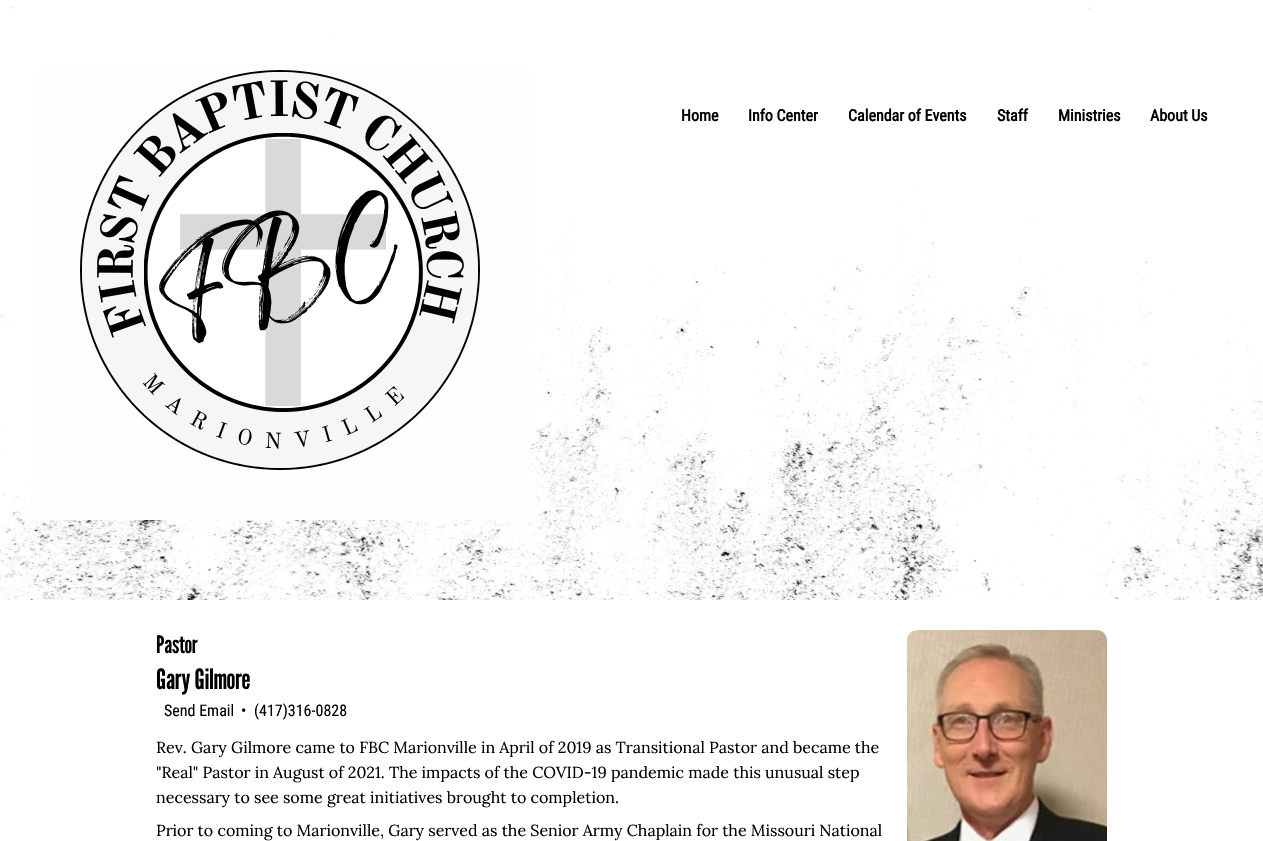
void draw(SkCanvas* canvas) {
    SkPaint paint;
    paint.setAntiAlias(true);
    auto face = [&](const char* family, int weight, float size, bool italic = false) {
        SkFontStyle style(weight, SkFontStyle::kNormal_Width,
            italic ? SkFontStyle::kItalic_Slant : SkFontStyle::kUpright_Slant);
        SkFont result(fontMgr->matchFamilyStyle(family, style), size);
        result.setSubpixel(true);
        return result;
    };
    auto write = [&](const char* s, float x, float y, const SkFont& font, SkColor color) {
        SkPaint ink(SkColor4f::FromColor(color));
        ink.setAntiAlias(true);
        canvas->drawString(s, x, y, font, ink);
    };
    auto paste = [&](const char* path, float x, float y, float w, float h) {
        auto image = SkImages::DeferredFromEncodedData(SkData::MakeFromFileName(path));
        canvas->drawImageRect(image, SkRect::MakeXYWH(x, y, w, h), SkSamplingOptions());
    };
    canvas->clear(SK_ColorWHITE);
    paste("pic1.png", 0, 7, 1263, 593);
    paste("pic2.png", 33, 70, 497, 450);
    auto kFont1 = face("Roboto Condensed", 700, 16);
    write("Home", 681, 121, kFont1, SK_ColorBLACK);
    write("Info Center", 748, 121, kFont1, SK_ColorBLACK);
    write("Calendar of Events", 848, 121, kFont1, SK_ColorBLACK);
    write("Staff", 997, 121, kFont1, SK_ColorBLACK);
    write("Ministries", 1058, 121, kFont1, SK_ColorBLACK);
    write("About Us", 1150, 121, kFont1, SK_ColorBLACK);
    auto kFont2 = face("League Gothic", 400, 24);
    write("Pastor", 156, 653, kFont2, SK_ColorBLACK);
    auto kFont3 = face("League Gothic", 400, 28);
    write("Gary Gilmore", 156, 689, kFont3, SK_ColorBLACK);
    auto kFont4 = face("Roboto Condensed", 400, 16);
    write("Send Email", 164, 716, kFont4, SK_ColorBLACK);
    write("•", 241, 716, kFont4, SK_ColorBLACK);
    write("(417)316-0828", 254, 716, kFont4, SK_ColorBLACK);
    paste("pic3.png", 907, 630, 200, 211);
    auto kFont5 = face("Lora", 400, 16);
    write("Rev. Gary Gilmore came to FBC Marionville in April of 2019 as Transitional Pastor and became the", 156, 753, kFont5, SK_ColorBLACK);
    write("\"Real\" Pastor in August of 2021. The impacts of the COVID-19 pandemic made this unusual step", 156, 778, kFont5, SK_ColorBLACK);
    write("necessary to see some great initiatives brought to completion.", 156, 803, kFont5, SK_ColorBLACK);
    write("Prior to coming to Marionville, Gary served as the Senior Army Chaplain for the Missouri National", 156, 836, kFont5, SK_ColorBLACK);
}
